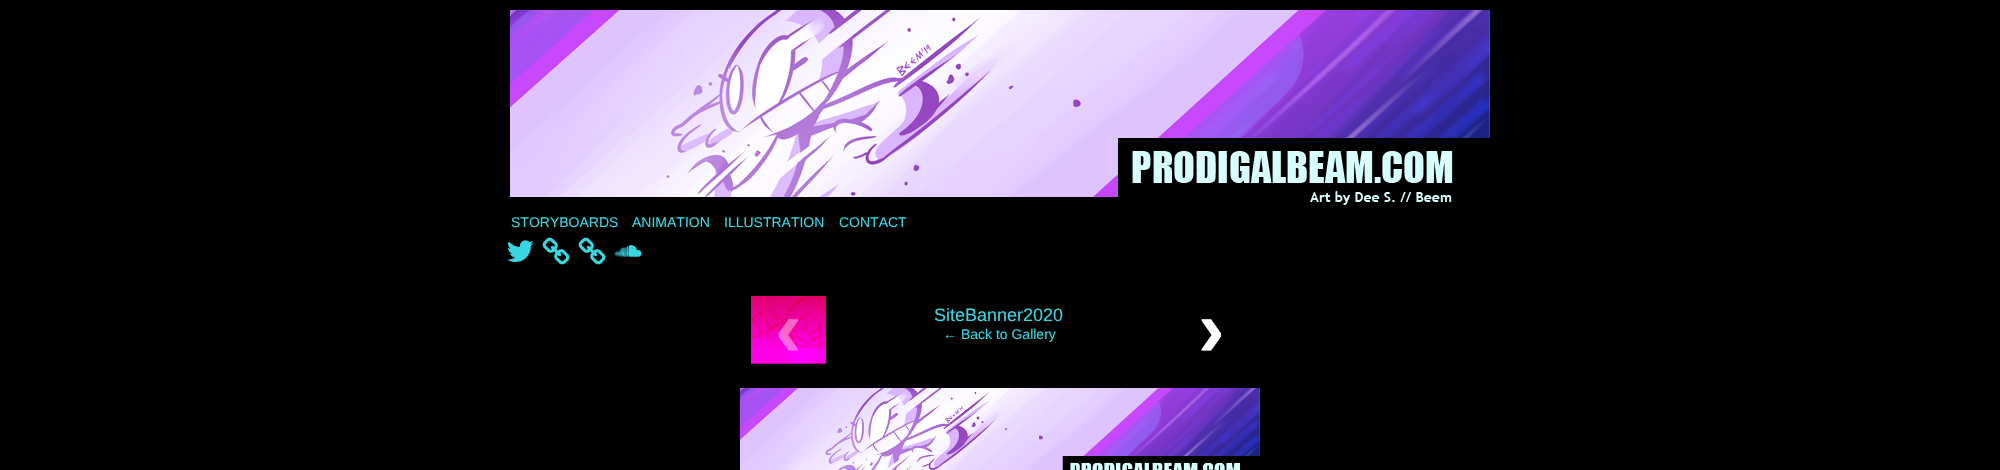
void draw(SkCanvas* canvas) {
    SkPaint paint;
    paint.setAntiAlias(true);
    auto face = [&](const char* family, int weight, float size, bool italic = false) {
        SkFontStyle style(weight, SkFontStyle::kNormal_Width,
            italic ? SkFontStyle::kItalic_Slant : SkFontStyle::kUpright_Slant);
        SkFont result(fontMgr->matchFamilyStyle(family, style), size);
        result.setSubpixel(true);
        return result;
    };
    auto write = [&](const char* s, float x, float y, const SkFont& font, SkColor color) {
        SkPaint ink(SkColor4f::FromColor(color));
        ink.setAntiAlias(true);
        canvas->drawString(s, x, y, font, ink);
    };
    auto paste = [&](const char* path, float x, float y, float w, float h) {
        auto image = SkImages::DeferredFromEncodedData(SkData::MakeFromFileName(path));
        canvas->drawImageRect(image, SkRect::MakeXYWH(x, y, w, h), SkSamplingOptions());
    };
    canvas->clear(SK_ColorBLACK);
    paste("pic1.png", 510, 10, 980, 195);
    auto kFont1 = face("Liberation Sans", 400, 14);
    write("STORYBOARDS", 511, 227, kFont1, SkColorSetRGB(56, 215, 226));
    write("ANIMATION", 632, 227, kFont1, SkColorSetRGB(56, 215, 226));
    write("ILLUSTRATION", 724, 227, kFont1, SkColorSetRGB(56, 215, 226));
    write("CONTACT", 839, 227, kFont1, SkColorSetRGB(56, 215, 226));
    paste("pic2.png", 507, 240, 27, 22);
    paste("pic3.png", 542, 237, 28, 28);
    paste("pic3.png", 578, 237, 28, 28);
    paste("pic4.png", 614, 245, 28, 12);
    paste("pic5.png", 751, 296, 75, 68);
    auto kFont2 = face("Liberation Sans", 700, 80);
    write("‹", 775, 356, kFont2, SK_ColorWHITE);
    paste("pic6.png", 778, 319, 21, 32);
    auto kFont3 = face("Liberation Sans", 400, 18);
    write("SiteBanner2020", 934, 321, kFont3, SkColorSetRGB(56, 215, 226));
    write("← Back to Gallery", 943, 339, kFont1, SkColorSetRGB(56, 215, 226));
    write("›", 1198, 356, kFont2, SK_ColorWHITE);
    paste("pic7.png", 740, 388, 520, 82);
}
